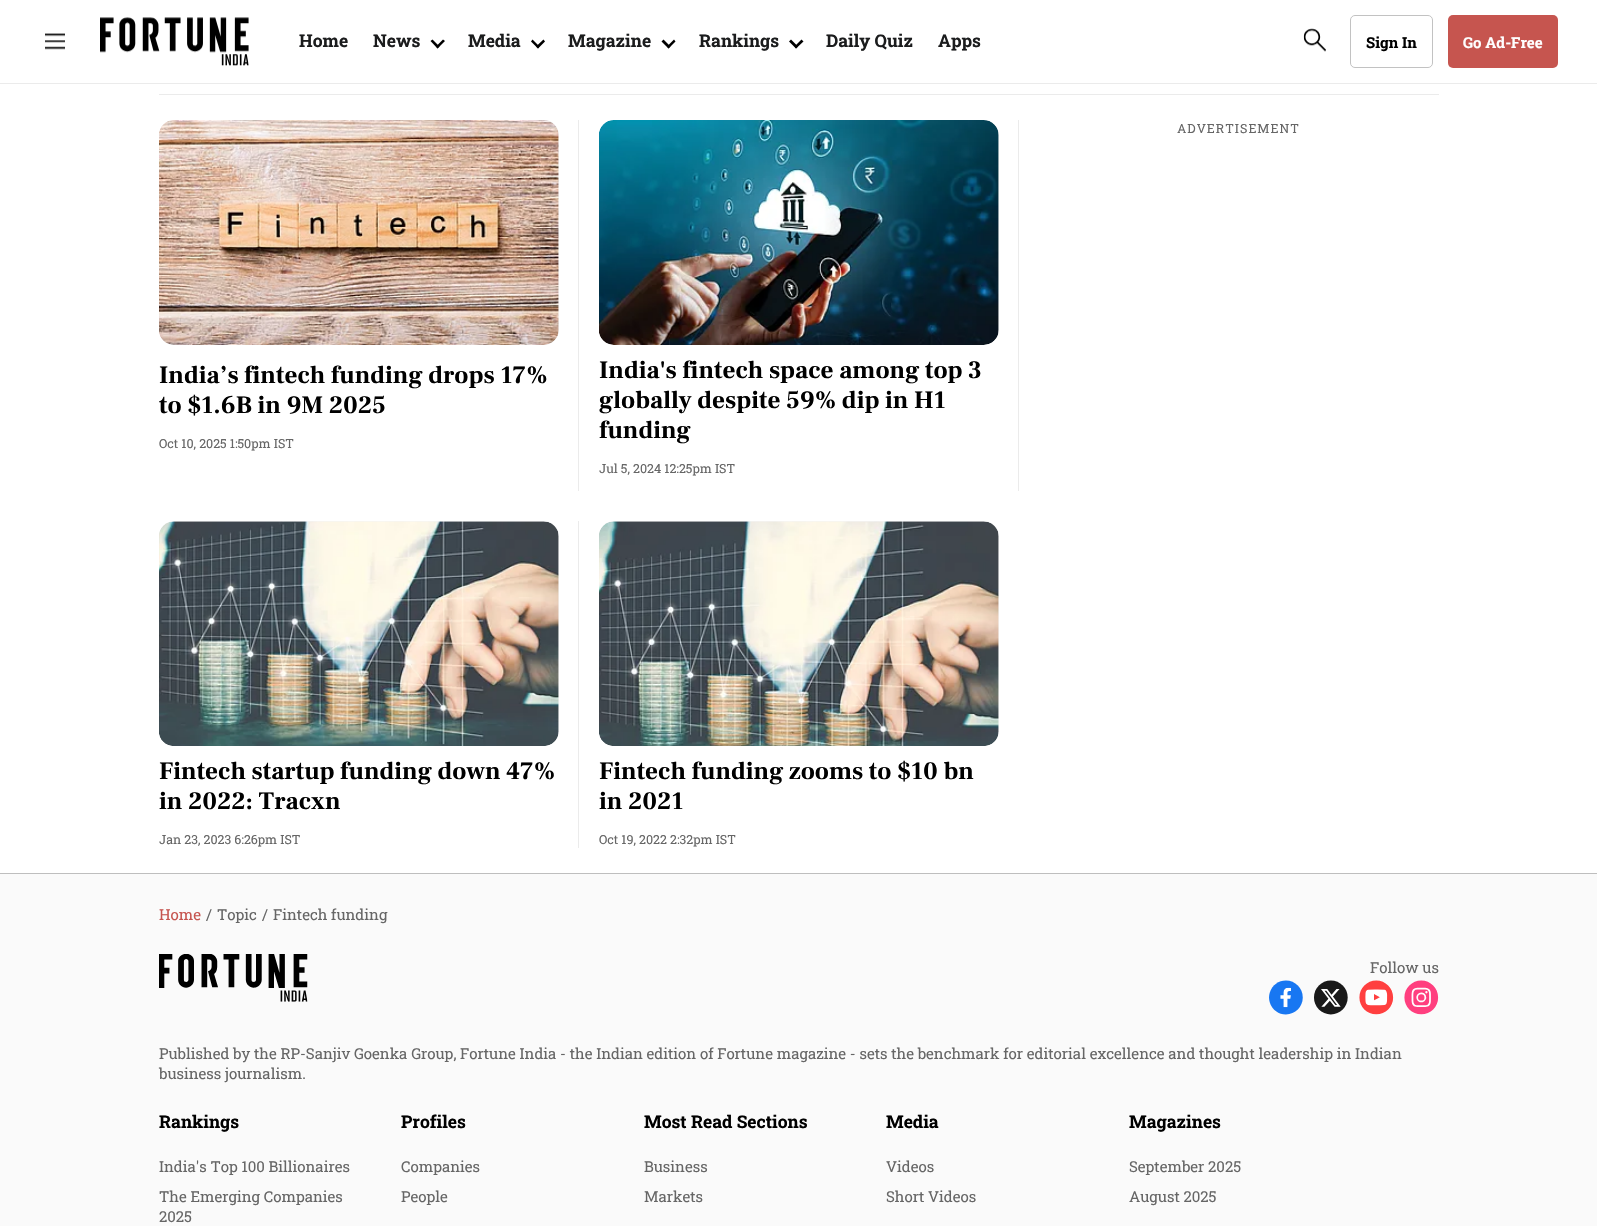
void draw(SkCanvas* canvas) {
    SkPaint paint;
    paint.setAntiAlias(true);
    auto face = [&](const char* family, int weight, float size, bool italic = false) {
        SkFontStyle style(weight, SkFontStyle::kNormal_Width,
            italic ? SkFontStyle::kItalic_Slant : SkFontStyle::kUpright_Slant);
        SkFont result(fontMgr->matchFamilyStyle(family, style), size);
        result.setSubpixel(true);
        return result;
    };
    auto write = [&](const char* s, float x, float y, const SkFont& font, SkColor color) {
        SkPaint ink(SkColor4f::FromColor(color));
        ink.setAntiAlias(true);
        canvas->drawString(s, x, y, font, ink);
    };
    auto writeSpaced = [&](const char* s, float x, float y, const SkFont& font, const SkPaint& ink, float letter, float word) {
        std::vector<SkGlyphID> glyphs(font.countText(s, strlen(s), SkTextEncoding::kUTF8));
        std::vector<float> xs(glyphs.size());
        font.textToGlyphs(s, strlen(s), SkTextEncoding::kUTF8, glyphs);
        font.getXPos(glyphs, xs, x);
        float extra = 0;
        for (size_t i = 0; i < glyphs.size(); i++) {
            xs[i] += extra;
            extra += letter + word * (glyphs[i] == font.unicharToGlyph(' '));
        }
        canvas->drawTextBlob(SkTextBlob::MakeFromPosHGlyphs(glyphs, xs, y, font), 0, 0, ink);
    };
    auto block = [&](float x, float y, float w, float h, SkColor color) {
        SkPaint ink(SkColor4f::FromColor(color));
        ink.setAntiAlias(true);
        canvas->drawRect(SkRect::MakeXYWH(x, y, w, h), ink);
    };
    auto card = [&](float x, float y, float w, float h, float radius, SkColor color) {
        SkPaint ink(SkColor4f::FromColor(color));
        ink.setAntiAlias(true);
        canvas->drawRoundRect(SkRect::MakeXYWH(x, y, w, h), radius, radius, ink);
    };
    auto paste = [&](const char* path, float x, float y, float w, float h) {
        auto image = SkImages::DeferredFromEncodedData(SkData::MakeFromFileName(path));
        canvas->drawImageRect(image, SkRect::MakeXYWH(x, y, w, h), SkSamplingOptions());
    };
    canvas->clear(SK_ColorWHITE);
    block(0, 83, 1597, 1, SkColorSetRGB(235, 235, 235));
    paste("pic1.png", 45, 33, 20, 17);
    paste("pic2.png", 100, 17, 149, 49);
    auto kFont1 = face("Roboto Slab", 700, 17.5f);
    write("Home", 299, 47, kFont1, SkColorSetRGB(27, 28, 29));
    write("News", 373, 47, kFont1, SkColorSetRGB(27, 28, 29));
    paint.setColor(SK_ColorBLACK);
    canvas->drawPath(SkPathBuilder().moveTo(445, 41).lineTo(437.5f, 48.5f).lineTo(436, 46.5f).lineTo(443, 39.5f).close().detach(), paint);
    canvas->drawPath(SkPathBuilder().moveTo(439.5f, 46.5f).lineTo(437.5f, 48.5f).lineTo(430.5f, 41).lineTo(432.5f, 39.5f).close().detach(), paint);
    write("Media", 468, 47, kFont1, SkColorSetRGB(27, 28, 29));
    canvas->drawPath(SkPathBuilder().moveTo(545, 41.5f).lineTo(538, 48.5f).lineTo(536, 46.5f).lineTo(543.5f, 39.5f).close().detach(), paint);
    canvas->drawPath(SkPathBuilder().moveTo(539.5f, 46.5f).lineTo(538, 48.5f).lineTo(531, 41.5f).lineTo(532.5f, 39.5f).close().detach(), paint);
    write("Magazine", 568, 47, kFont1, SkColorSetRGB(27, 28, 29));
    canvas->drawPath(SkPathBuilder().moveTo(675.5f, 41.5f).lineTo(668.5f, 48.5f).lineTo(667, 46.5f).lineTo(674, 39.5f).close().detach(), paint);
    canvas->drawPath(SkPathBuilder().moveTo(670.5f, 46.5f).lineTo(668.5f, 48.5f).lineTo(661.5f, 41.5f).lineTo(663.5f, 39.5f).close().detach(), paint);
    write("Rankings", 699, 47, kFont1, SkColorSetRGB(27, 28, 29));
    canvas->drawPath(SkPathBuilder().moveTo(803.5f, 41.5f).lineTo(796, 48.5f).lineTo(794.5f, 46.5f).lineTo(801.5f, 39.5f).close().detach(), paint);
    canvas->drawPath(SkPathBuilder().moveTo(798, 46.5f).lineTo(796, 48.5f).lineTo(789, 41.5f).lineTo(791, 39.5f).close().detach(), paint);
    write("Daily Quiz", 826, 47, kFont1, SkColorSetRGB(27, 28, 29));
    write("Apps", 938, 47, kFont1, SkColorSetRGB(27, 28, 29));
    paste("pic3.png", 1303, 28, 23, 24);
    paint.setStyle(SkPaint::kStroke_Style);
    paint.setStrokeWidth(1);
    paint.setColor(SkColorSetRGB(194, 194, 194));
    canvas->drawRoundRect(SkRect::MakeXYWH(1350.5f, 15.5f, 82, 52), 4.5f, 4.5f, paint);
    auto kFont2 = face("Roboto Slab", 700, 15);
    write("Sign In", 1366, 48, kFont2, SK_ColorBLACK);
    card(1448, 15, 110, 53, 5, SkColorSetRGB(198, 85, 79));
    write("Go Ad-Free", 1463, 48, kFont2, SK_ColorWHITE);
    block(159, 94, 1280, 1, SkColorSetRGB(235, 235, 235));
    auto kFont3 = face("Roboto Slab", 400, 12.5f);
    paint.setStyle(SkPaint::kFill_Style);
    paint.setColor(SkColorSetRGB(102, 102, 102));
    writeSpaced("ADVERTISEMENT", 1177, 133, kFont3, paint, 1, 0);
    paste("pic4.png", 159, 120, 400, 225);
    paste("pic5.png", 159, 120, 400, 225);
    block(578, 120, 1, 371, SkColorSetRGB(235, 235, 235));
    auto kFont4 = face("Frank Ruhl Libre", 700, 25);
    write("India’s fintech funding drops 17%", 159, 383, kFont4, SK_ColorBLACK);
    write("to $1.6B in 9M 2025", 159, 413, kFont4, SK_ColorBLACK);
    write("Oct 10, 2025 1:50pm IST", 159, 448, kFont3, SkColorSetRGB(102, 102, 102));
    paste("pic4.png", 599, 120, 400, 225);
    paste("pic6.png", 599, 120, 400, 225);
    block(1018, 120, 1, 371, SkColorSetRGB(235, 235, 235));
    write("India's fintech space among top 3", 599, 378, kFont4, SK_ColorBLACK);
    write("globally despite 59% dip in H1", 599, 408, kFont4, SK_ColorBLACK);
    write("funding", 599, 438, kFont4, SK_ColorBLACK);
    write("Jul 5, 2024 12:25pm IST", 599, 473, kFont3, SkColorSetRGB(102, 102, 102));
    paste("pic7.png", 159, 521, 400, 225);
    paste("pic8.png", 159, 521, 400, 225);
    block(578, 521, 1, 327, SkColorSetRGB(235, 235, 235));
    write("Fintech startup funding down 47%", 159, 779, kFont4, SK_ColorBLACK);
    write("in 2022: Tracxn", 159, 809, kFont4, SK_ColorBLACK);
    write("Jan 23, 2023 6:26pm IST", 159, 844, kFont3, SkColorSetRGB(102, 102, 102));
    paste("pic7.png", 599, 521, 400, 225);
    paste("pic9.png", 599, 521, 400, 225);
    write("Fintech funding zooms to $10 bn", 599, 779, kFont4, SK_ColorBLACK);
    write("in 2021", 599, 809, kFont4, SK_ColorBLACK);
    write("Oct 19, 2022 2:32pm IST", 599, 844, kFont3, SkColorSetRGB(102, 102, 102));
    block(0, 874, 1597, 352, SkColorSetRGB(250, 250, 250));
    block(0, 873, 1597, 1, SkColorSetRGB(190, 190, 190));
    auto kFont5 = face("Roboto Slab", 400, 15);
    write("Home", 159, 920, kFont5, SkColorSetRGB(198, 85, 79));
    write("/", 206, 920, kFont5, SkColorSetRGB(102, 102, 102));
    write("Topic", 217, 920, kFont5, SkColorSetRGB(102, 102, 102));
    write("/", 262, 920, kFont5, SkColorSetRGB(102, 102, 102));
    write("Fintech funding", 273, 920, kFont5, SkColorSetRGB(102, 102, 102));
    paste("pic10.png", 159, 954, 149, 48);
    write("Follow us", 1370, 973, kFont5, SkColorSetRGB(102, 102, 102));
    paste("pic11.png", 1269, 980, 34, 35);
    paste("pic12.png", 1314, 980, 34, 35);
    paste("pic13.png", 1359, 980, 35, 35);
    paste("pic14.png", 1404, 980, 35, 35);
    write("Published by the RP-Sanjiv Goenka Group, Fortune India - the Indian edition of Fortune magazine - sets the benchmark for editorial excellence and thought leadership in Indian", 159, 1059, kFont5, SkColorSetRGB(102, 102, 102));
    write("business journalism.", 159, 1079, kFont5, SkColorSetRGB(102, 102, 102));
    write("Rankings", 159, 1128, kFont1, SK_ColorBLACK);
    write("India's Top 100 Billionaires", 159, 1172, kFont5, SkColorSetRGB(102, 102, 102));
    write("The Emerging Companies", 159, 1202, kFont5, SkColorSetRGB(102, 102, 102));
    write("2025", 159, 1222, kFont5, SkColorSetRGB(102, 102, 102));
    write("Profiles", 401, 1128, kFont1, SK_ColorBLACK);
    write("Companies", 401, 1172, kFont5, SkColorSetRGB(102, 102, 102));
    write("People", 401, 1202, kFont5, SkColorSetRGB(102, 102, 102));
    write("Most Read Sections", 644, 1128, kFont1, SK_ColorBLACK);
    write("Business", 644, 1172, kFont5, SkColorSetRGB(102, 102, 102));
    write("Markets", 644, 1202, kFont5, SkColorSetRGB(102, 102, 102));
    write("Media", 886, 1128, kFont1, SK_ColorBLACK);
    write("Videos", 886, 1172, kFont5, SkColorSetRGB(102, 102, 102));
    write("Short Videos", 886, 1202, kFont5, SkColorSetRGB(102, 102, 102));
    write("Magazines", 1129, 1128, kFont1, SK_ColorBLACK);
    write("September 2025", 1129, 1172, kFont5, SkColorSetRGB(102, 102, 102));
    write("August 2025", 1129, 1202, kFont5, SkColorSetRGB(102, 102, 102));
}
